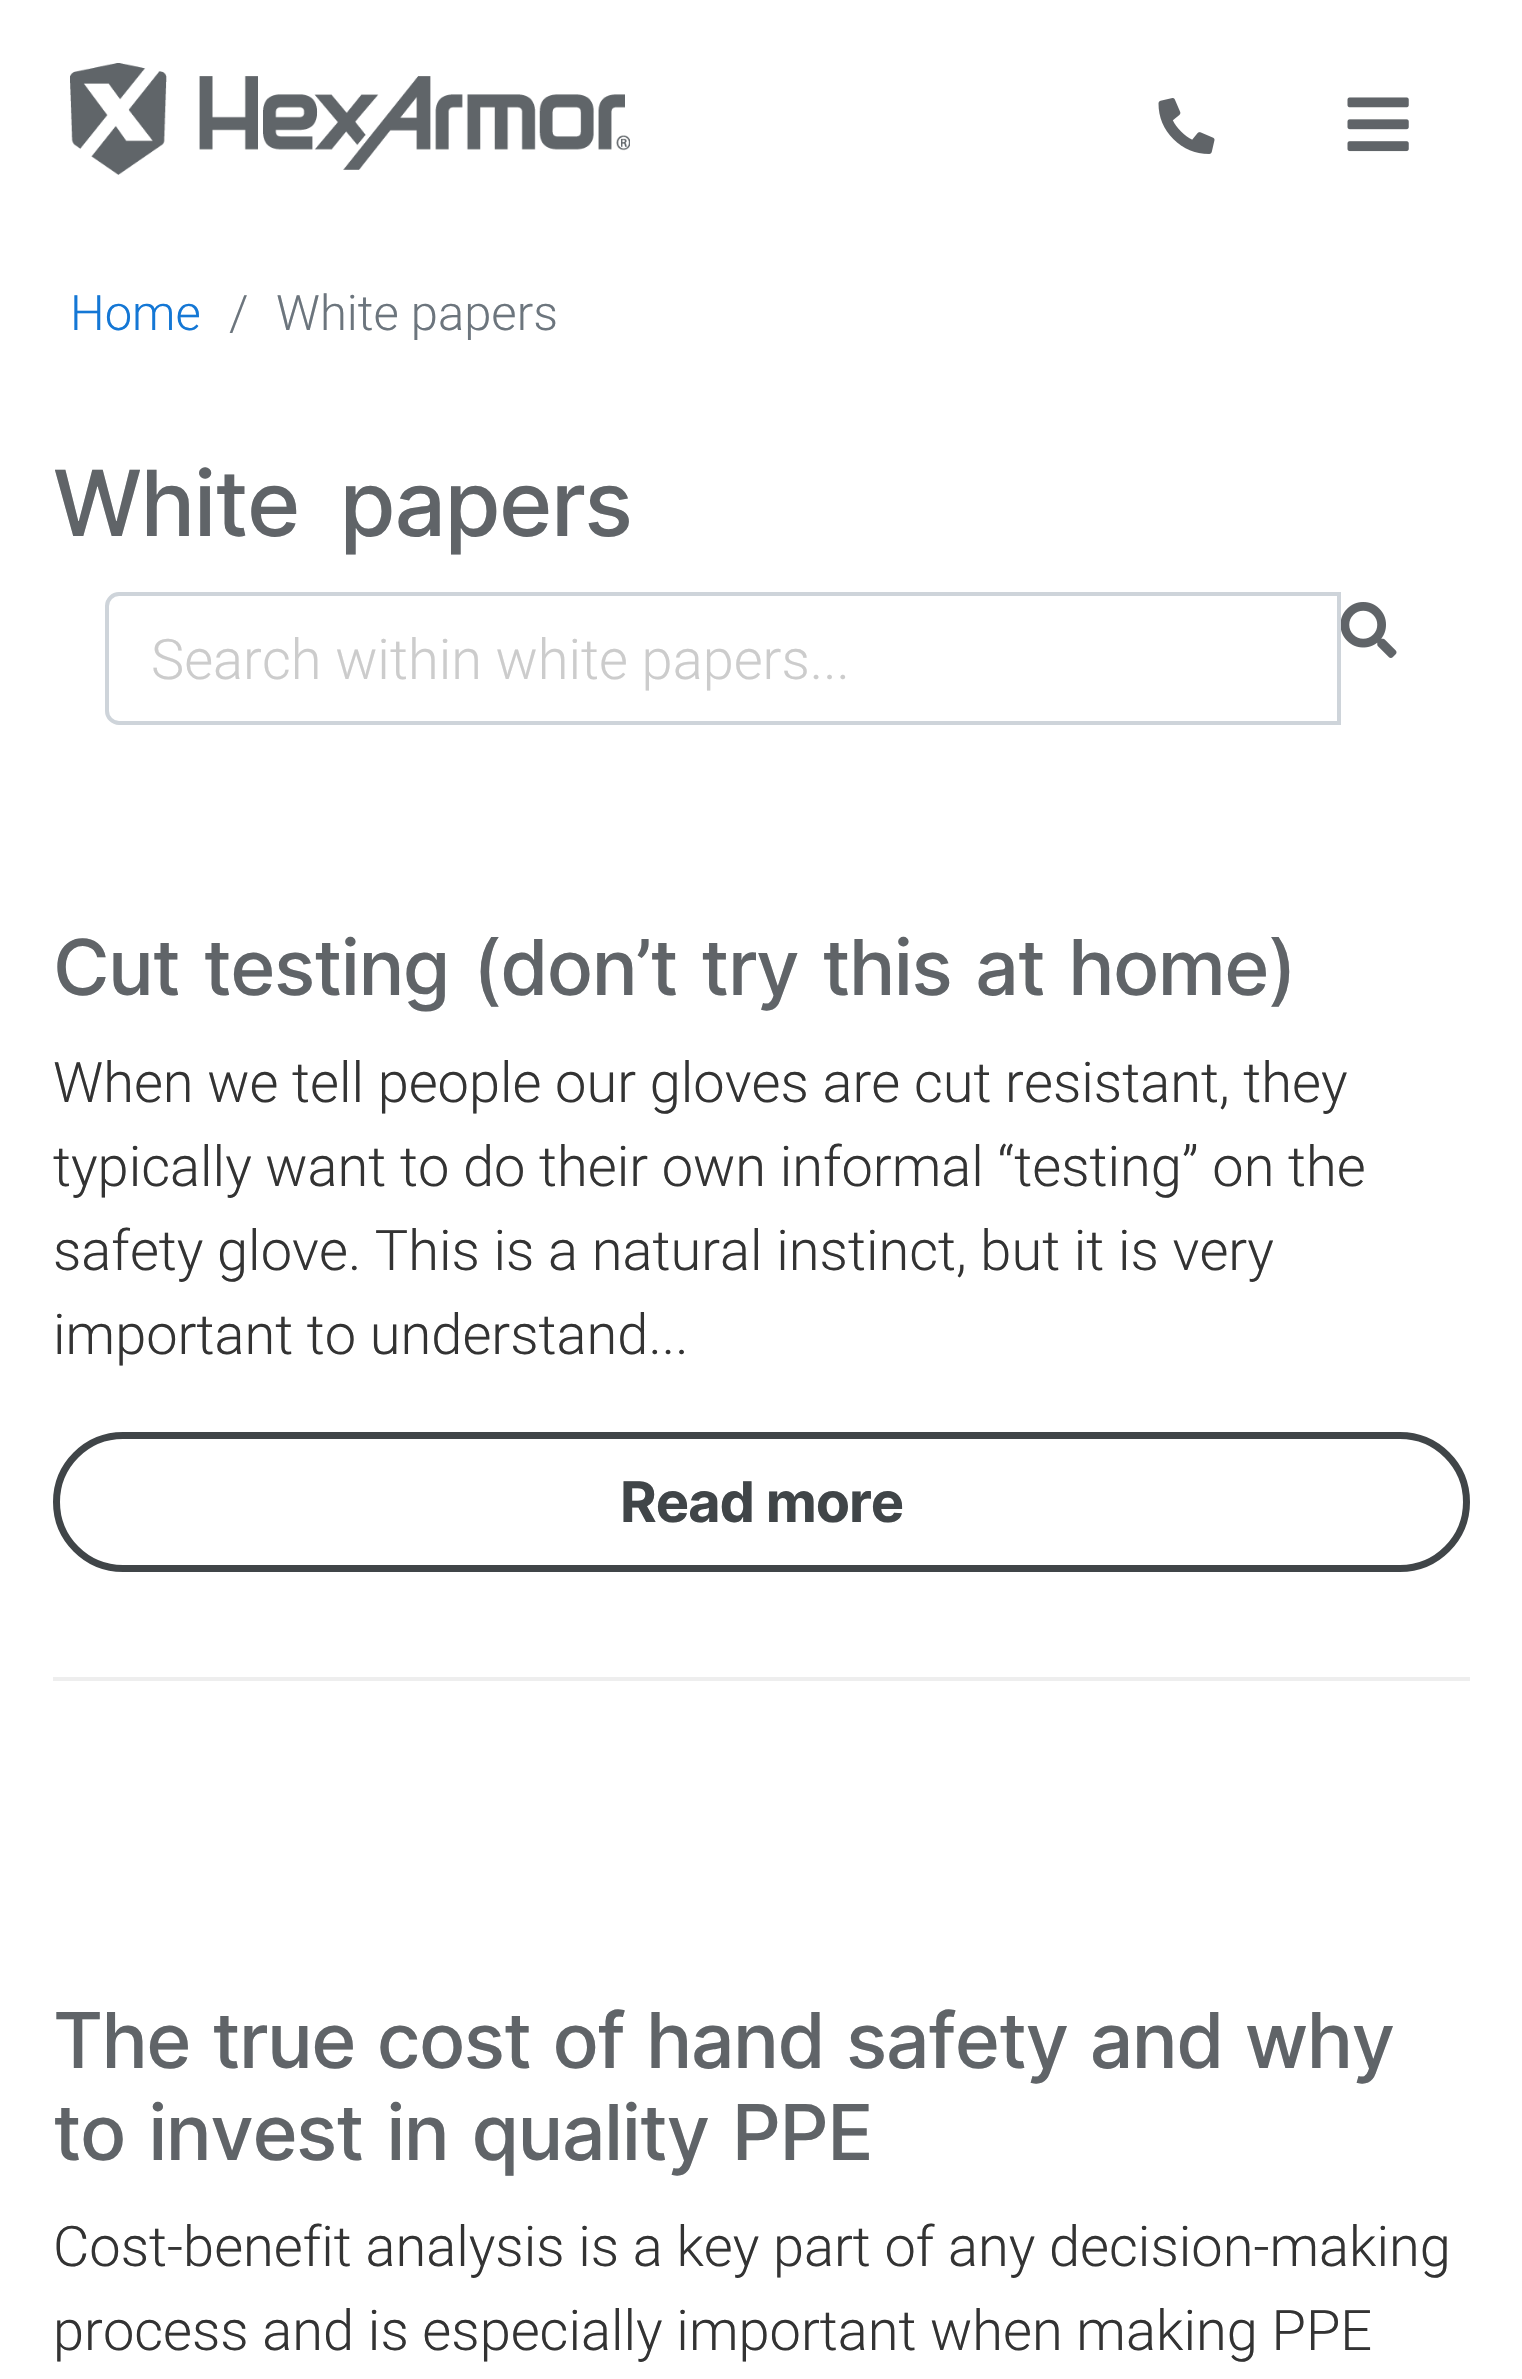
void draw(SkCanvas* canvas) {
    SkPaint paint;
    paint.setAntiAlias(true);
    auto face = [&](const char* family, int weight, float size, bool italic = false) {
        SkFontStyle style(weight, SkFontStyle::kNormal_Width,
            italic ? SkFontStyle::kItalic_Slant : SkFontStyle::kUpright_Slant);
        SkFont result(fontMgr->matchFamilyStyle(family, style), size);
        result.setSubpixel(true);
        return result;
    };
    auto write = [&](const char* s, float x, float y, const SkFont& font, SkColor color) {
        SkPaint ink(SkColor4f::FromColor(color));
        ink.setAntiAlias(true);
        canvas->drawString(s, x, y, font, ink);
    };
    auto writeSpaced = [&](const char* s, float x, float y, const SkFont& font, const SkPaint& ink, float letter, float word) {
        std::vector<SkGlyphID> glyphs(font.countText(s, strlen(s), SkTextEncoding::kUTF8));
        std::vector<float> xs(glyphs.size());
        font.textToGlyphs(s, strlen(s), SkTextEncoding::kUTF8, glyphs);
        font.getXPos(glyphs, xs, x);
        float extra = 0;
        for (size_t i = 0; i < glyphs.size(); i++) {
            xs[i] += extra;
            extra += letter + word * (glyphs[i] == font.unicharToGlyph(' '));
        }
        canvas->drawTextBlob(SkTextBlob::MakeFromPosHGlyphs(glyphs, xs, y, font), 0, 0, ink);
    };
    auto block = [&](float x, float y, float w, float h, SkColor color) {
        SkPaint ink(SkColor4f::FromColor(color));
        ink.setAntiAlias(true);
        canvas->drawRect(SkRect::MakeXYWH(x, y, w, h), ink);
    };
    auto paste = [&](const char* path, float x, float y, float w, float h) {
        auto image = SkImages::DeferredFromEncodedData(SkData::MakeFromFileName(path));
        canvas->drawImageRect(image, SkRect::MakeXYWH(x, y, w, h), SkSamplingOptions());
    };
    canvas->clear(SK_ColorWHITE);
    paste("pic1.png", 70, 63, 560, 112);
    paste("pic2.png", 1158, 98, 57, 56);
    paste("pic3.png", 1347, 97, 62, 55);
    auto kFont1 = face("Roboto", 300, 49);
    write("Home", 70, 330, kFont1, SkColorSetRGB(20, 119, 213));
    write("/", 229, 330, kFont1, SkColorSetRGB(108, 117, 125));
    write("White papers", 276, 330, kFont1, SkColorSetRGB(108, 117, 125));
    auto kFont2 = face("Inter", 500, 91);
    paint.setColor(SkColorSetRGB(96, 100, 104));
    writeSpaced("White papers", 53, 536, kFont2, paint, -1.55f, 18);
    paste("pic4.png", 1341, 602, 56, 56);
    paint.setStyle(SkPaint::kStroke_Style);
    paint.setStrokeWidth(4);
    paint.setColor(SkColorSetRGB(206, 212, 218));
    canvas->drawPath(SkPathBuilder().moveTo(119, 594).lineTo(1339, 594).lineTo(1339, 723).lineTo(119, 723).cubicTo(112.5f, 723, 107, 717.5f, 107, 711).lineTo(107, 606).cubicTo(107, 599.5f, 112.5f, 594, 119, 594).close().detach(), paint);
    auto kFont3 = face("Roboto", 300, 56);
    write("Search within white papers...", 151, 679, kFont3, SkColorSetRGB(204, 204, 204));
    block(53, 1677, 1417, 4, SkColorSetRGB(238, 238, 238));
    auto kFont4 = face("Inter", 500, 77);
    paint.setStyle(SkPaint::kFill_Style);
    paint.setColor(SkColorSetRGB(96, 100, 104));
    writeSpaced("Cut testing (don’t try this at home)", 53, 995, kFont4, paint, -1.55f, 5);
    write("When we tell people our gloves are cut resistant, they", 53, 1102, kFont3, SkColorSetRGB(51, 51, 51));
    write("typically want to do their own informal “testing” on the", 53, 1186, kFont3, SkColorSetRGB(51, 51, 51));
    write("safety glove. This is a natural instinct, but it is very", 53, 1270, kFont3, SkColorSetRGB(51, 51, 51));
    write("important to understand...", 53, 1354, kFont3, SkColorSetRGB(51, 51, 51));
    paint.setStyle(SkPaint::kStroke_Style);
    paint.setStrokeWidth(7);
    paint.setColor(SkColorSetRGB(64, 69, 72));
    canvas->drawRoundRect(SkRect::MakeXYWH(56.5f, 1435.5f, 1410, 133), 66.5f, 66.5f, paint);
    auto kFont5 = face("Inter", 700, 56);
    paint.setStyle(SkPaint::kFill_Style);
    writeSpaced("Read more", 620, 1522, kFont5, paint, -1.1f, 0);
    paint.setColor(SkColorSetRGB(96, 100, 104));
    writeSpaced("The true cost of hand safety and why", 53, 2068, kFont4, paint, -1.55f, 3);
    writeSpaced("to invest in quality PPE", 53, 2160, kFont4, paint, -1.55f, 4.5f);
    write("Cost-benefit analysis is a key part of any decision-making", 53, 2266, kFont3, SkColorSetRGB(51, 51, 51));
    write("process and is especially important when making PPE", 53, 2350, kFont3, SkColorSetRGB(51, 51, 51));
}
